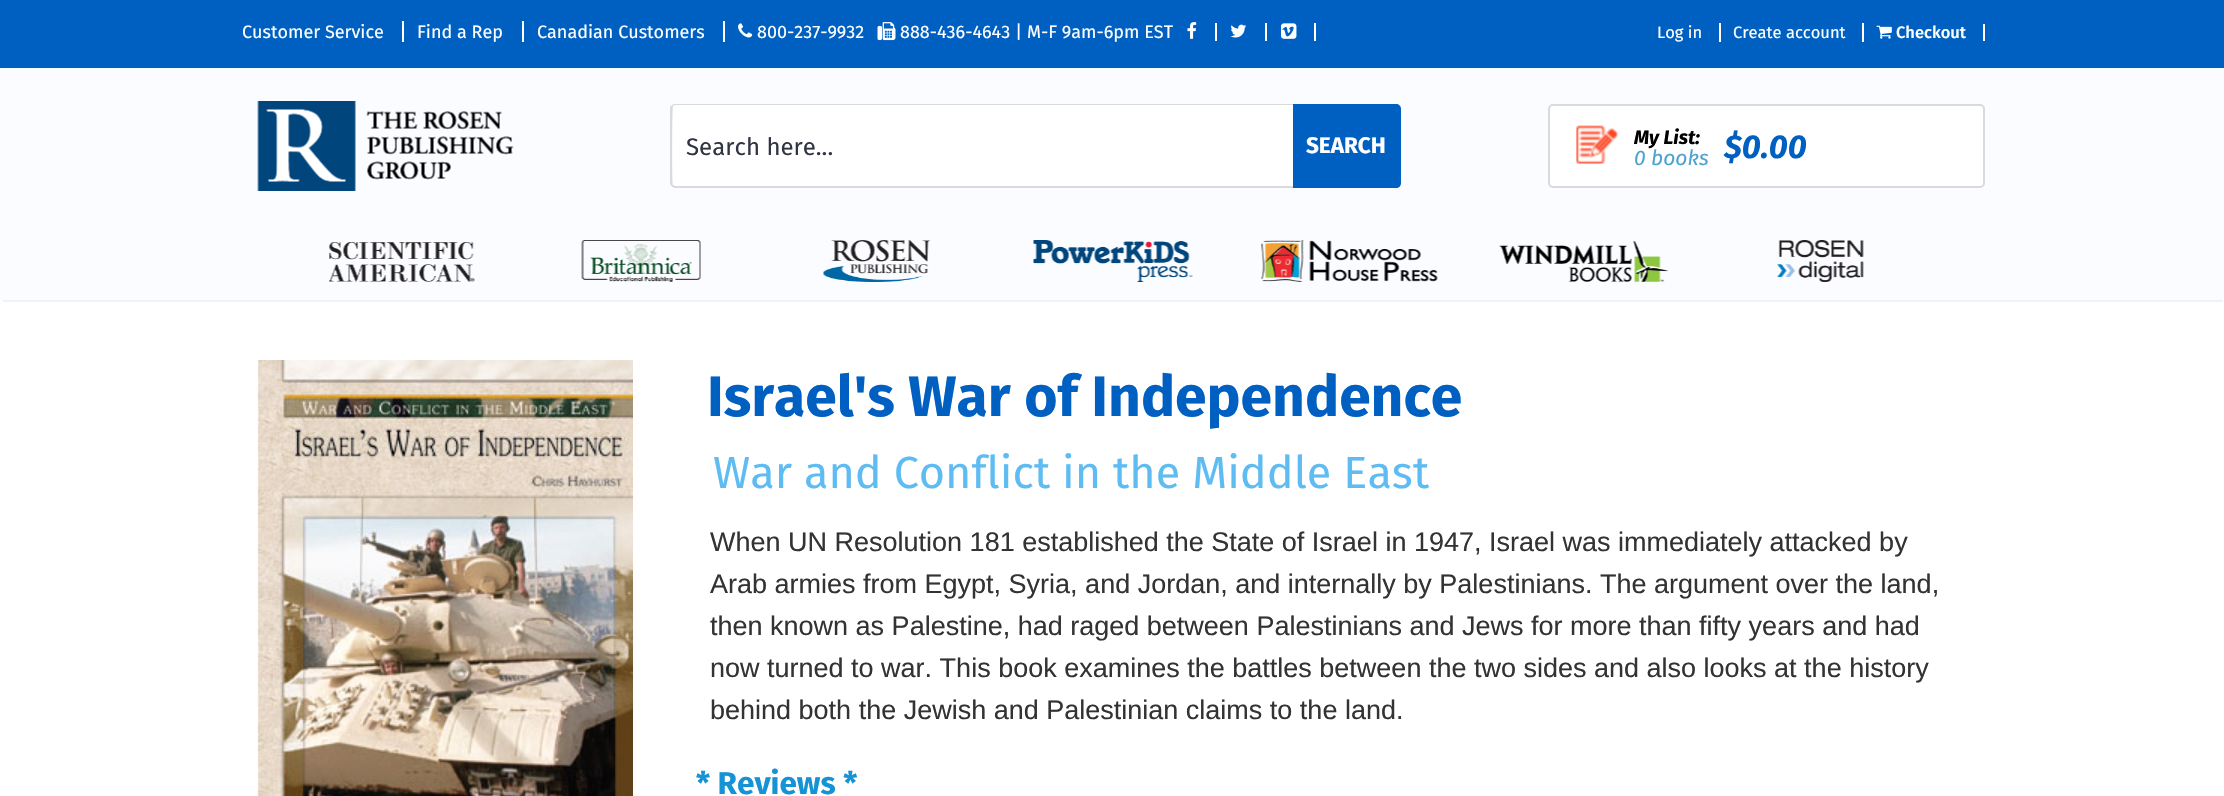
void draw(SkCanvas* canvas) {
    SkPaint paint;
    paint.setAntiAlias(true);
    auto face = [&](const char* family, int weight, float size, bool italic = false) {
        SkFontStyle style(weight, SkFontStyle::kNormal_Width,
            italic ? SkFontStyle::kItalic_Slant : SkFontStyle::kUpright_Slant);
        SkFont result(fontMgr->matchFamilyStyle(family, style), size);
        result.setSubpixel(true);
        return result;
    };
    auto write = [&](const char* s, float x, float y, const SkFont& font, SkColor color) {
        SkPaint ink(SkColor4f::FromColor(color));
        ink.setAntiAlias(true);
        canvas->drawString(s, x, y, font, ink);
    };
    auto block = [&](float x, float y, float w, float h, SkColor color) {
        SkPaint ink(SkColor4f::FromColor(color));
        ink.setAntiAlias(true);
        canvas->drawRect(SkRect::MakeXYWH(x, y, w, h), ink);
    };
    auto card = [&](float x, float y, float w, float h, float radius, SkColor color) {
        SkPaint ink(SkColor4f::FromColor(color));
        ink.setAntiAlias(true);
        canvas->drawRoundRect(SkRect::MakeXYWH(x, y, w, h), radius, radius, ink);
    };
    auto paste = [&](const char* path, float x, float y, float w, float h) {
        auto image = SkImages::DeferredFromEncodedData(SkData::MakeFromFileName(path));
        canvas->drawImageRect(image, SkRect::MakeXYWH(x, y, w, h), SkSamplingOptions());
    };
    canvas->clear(SK_ColorWHITE);
    block(0, 0, 2224, 68, SkColorSetRGB(0, 96, 194));
    auto kFont1 = face("Fira Sans", 400, 18);
    write("Customer Service", 242, 38, kFont1, SK_ColorWHITE);
    block(402, 21, 2, 21, SK_ColorWHITE);
    write("Find a Rep", 417, 38, kFont1, SK_ColorWHITE);
    block(522, 21, 2, 21, SK_ColorWHITE);
    write("Canadian Customers", 537, 38, kFont1, SK_ColorWHITE);
    block(723, 21, 2, 21, SK_ColorWHITE);
    paste("pic1.png", 738, 23, 15, 15);
    write("800-237-9932", 757, 38, kFont1, SK_ColorWHITE);
    paste("pic2.png", 877, 22, 19, 19);
    write("888-436-4643 | M-F 9am-6pm EST", 900, 38, kFont1, SK_ColorWHITE);
    block(1215, 23, 2, 18, SK_ColorWHITE);
    paste("pic3.png", 1187, 22, 10, 17);
    block(1265, 23, 2, 18, SK_ColorWHITE);
    paste("pic4.png", 1230, 24, 17, 14);
    block(1314, 23, 2, 18, SK_ColorWHITE);
    paste("pic5.png", 1281, 23, 16, 16);
    auto kFont2 = face("Fira Sans", 400, 16.5f);
    write("Log in", 1657, 38, kFont2, SK_ColorWHITE);
    block(1719, 23, 2, 19, SK_ColorWHITE);
    write("Create account", 1733, 38, kFont2, SK_ColorWHITE);
    block(1862, 23, 2, 19, SK_ColorWHITE);
    block(1983, 24, 2, 17, SK_ColorWHITE);
    paste("pic6.png", 1876, 25, 16, 14);
    auto kFont3 = face("Fira Sans", 500, 16.5f);
    write("Checkout", 1896, 38, kFont3, SK_ColorWHITE);
    block(0, 68, 2224, 157, SkColorSetRGB(250, 252, 255));
    paste("pic7.png", 257, 101, 257, 90);
    paint.setColor(SK_ColorWHITE);
    canvas->drawPath(SkPathBuilder().moveTo(676, 104).lineTo(1293, 104).lineTo(1293, 188).lineTo(676, 188).cubicTo(673, 188, 671, 186, 671, 183).lineTo(671, 109).cubicTo(671, 106, 673, 104, 676, 104).close().detach(), paint);
    paint.setColor(SkColorSetRGB(216, 218, 220));
    canvas->drawPath(SkPathBuilder(SkPathFillType::kEvenOdd).moveTo(675, 104).lineTo(1293, 104).lineTo(1293, 188).lineTo(675, 188).cubicTo(673, 188, 670, 185, 670, 183).lineTo(670, 108).cubicTo(670, 106, 673, 104, 675, 104).close().moveTo(675, 105).lineTo(1293, 105).lineTo(1293, 186).lineTo(675, 186).lineTo(673, 185).cubicTo(672, 183, 672, 108, 673, 106).close().detach(), paint);
    auto kFont4 = face("Fira Sans", 400, 24);
    write("Search here...", 686, 155, kFont4, SkColorSetRGB(47, 53, 66));
    paint.setColor(SkColorSetRGB(0, 96, 194));
    canvas->drawPath(SkPathBuilder().moveTo(1293, 104).lineTo(1396, 104).cubicTo(1399, 104, 1401, 106, 1401, 109).lineTo(1401, 183).cubicTo(1401, 186, 1399, 188, 1396, 188).lineTo(1293, 188).close().detach(), paint);
    auto kFont5 = face("Fira Sans", 700, 22.5f);
    write("SEARCH", 1306, 153, kFont5, SK_ColorWHITE);
    paint.setColor(SK_ColorWHITE);
    canvas->drawRoundRect(SkRect::MakeXYWH(1549, 105, 435, 82), 4, 4, paint);
    paint.setStyle(SkPaint::kStroke_Style);
    paint.setStrokeWidth(2);
    paint.setColor(SkColorSetRGB(216, 218, 220));
    canvas->drawRoundRect(SkRect::MakeXYWH(1549, 105, 435, 82), 4, 4, paint);
    paste("pic8.png", 1576, 125, 42, 39);
    auto kFont6 = face("Fira Sans", 700, 19.5f, true);
    write("My List:", 1634, 144, kFont6, SK_ColorBLACK);
    auto kFont7 = face("Fira Sans", 400, 21, true);
    write("0 books", 1634, 165, kFont7, SkColorSetRGB(77, 163, 206));
    auto kFont8 = face("Fira Sans", 700, 33, true);
    write("$0.00", 1724, 158, kFont8, SkColorSetRGB(0, 96, 194));
    card(0, 225, 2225, 77, 5, SkColorSetRGB(250, 252, 255));
    paste("pic9.png", 329, 242, 146, 40);
    paste("pic10.png", 581, 240, 120, 42);
    paste("pic11.png", 823, 240, 108, 42);
    paste("pic12.png", 1033, 240, 160, 42);
    paste("pic13.png", 1261, 240, 177, 42);
    paste("pic14.png", 1499, 241, 170, 41);
    paste("pic15.png", 1777, 240, 87, 42);
    block(3, 300, 2220, 2, SkColorSetRGB(241, 242, 246));
    paste("pic16.png", 257, 360, 376, 436);
    auto kFont9 = face("Fira Sans", 700, 57);
    write("Israel's War of Independence", 707, 416, kFont9, SkColorSetRGB(0, 96, 194));
    auto kFont10 = face("Fira Sans", 400, 45);
    write("War and Conflict in the Middle East", 713, 488, kFont10, SkColorSetRGB(94, 188, 242));
    auto kFont11 = face("Liberation Sans", 400, 27);
    write("When UN Resolution 181 established the State of Israel in 1947, Israel was immediately attacked by", 710, 551, kFont11, SkColorSetRGB(51, 51, 51));
    write("Arab armies from Egypt, Syria, and Jordan, and internally by Palestinians. The argument over the land,", 710, 593, kFont11, SkColorSetRGB(51, 51, 51));
    write("then known as Palestine, had raged between Palestinians and Jews for more than fifty years and had", 710, 635, kFont11, SkColorSetRGB(51, 51, 51));
    write("now turned to war. This book examines the battles between the two sides and also looks at the history", 710, 677, kFont11, SkColorSetRGB(51, 51, 51));
    write("behind both the Jewish and Palestinian claims to the land.", 710, 719, kFont11, SkColorSetRGB(51, 51, 51));
    auto kFont12 = face("Fira Sans", 700, 31.5f);
    write("* Reviews *", 696, 794, kFont12, SkColorSetRGB(21, 147, 213));
}
